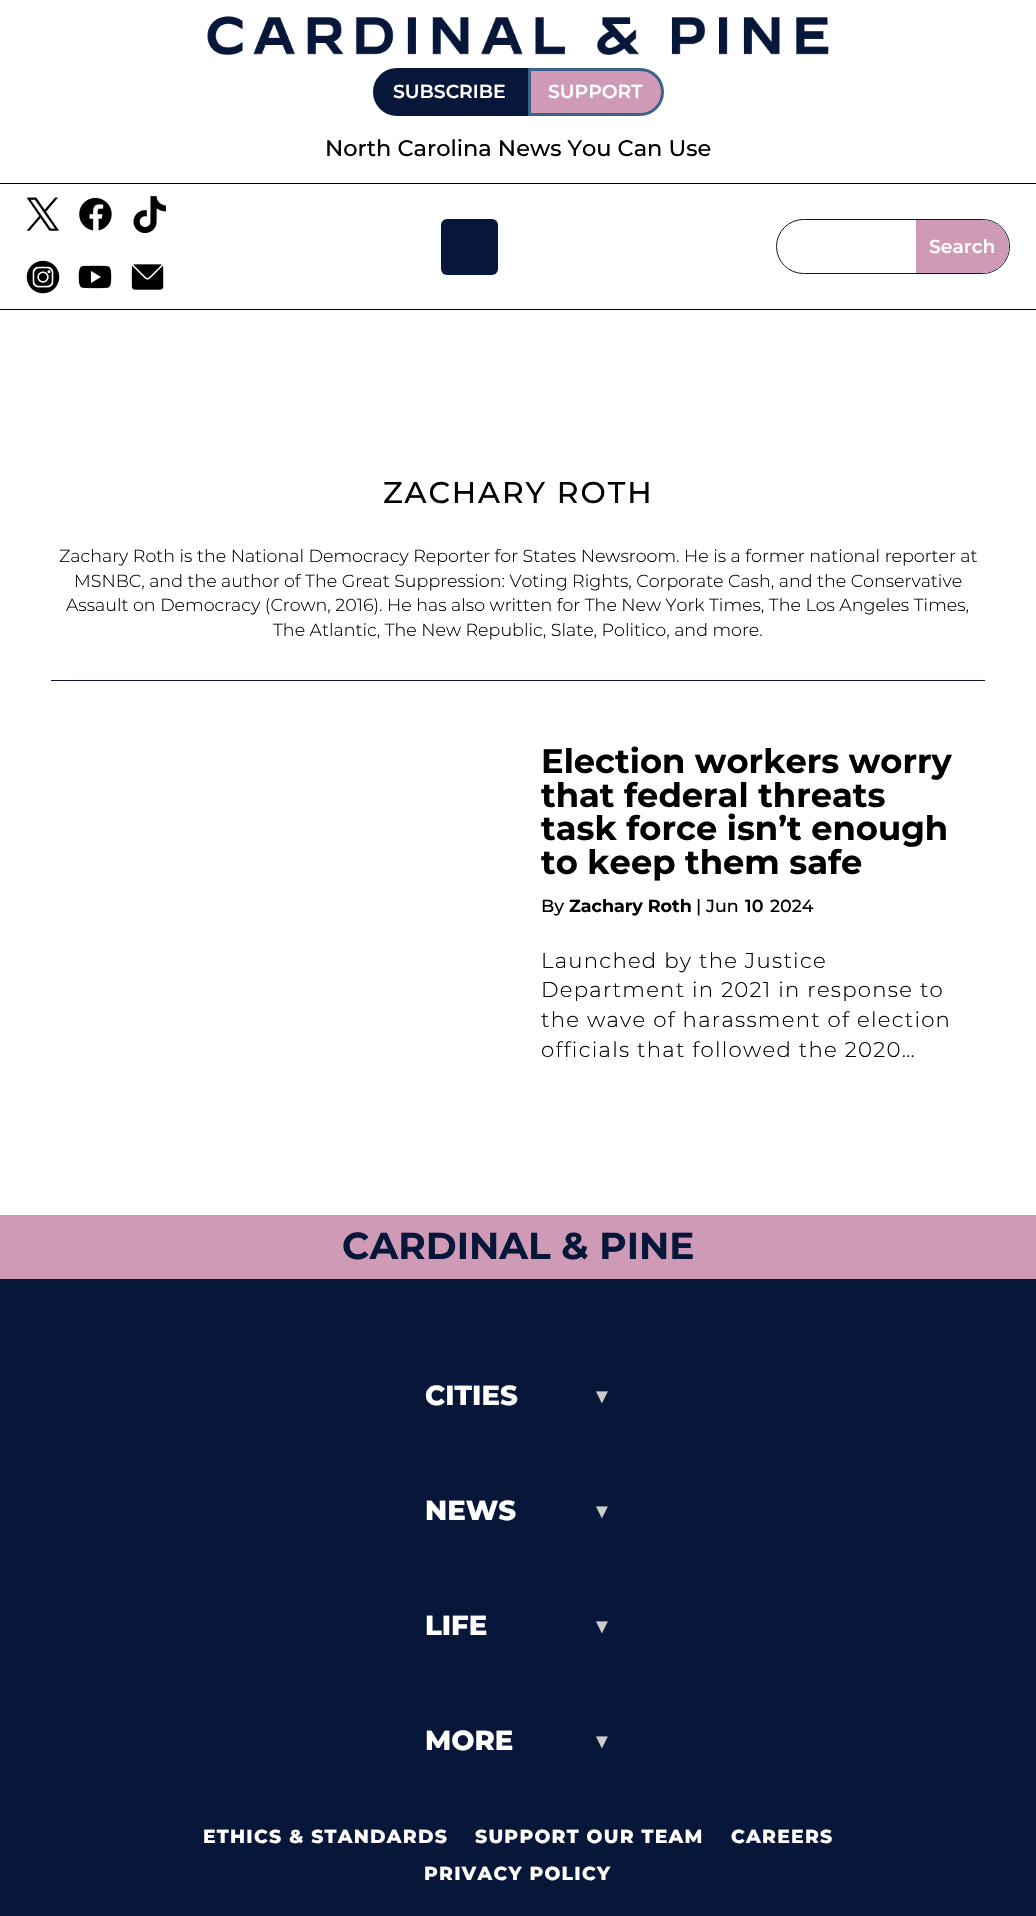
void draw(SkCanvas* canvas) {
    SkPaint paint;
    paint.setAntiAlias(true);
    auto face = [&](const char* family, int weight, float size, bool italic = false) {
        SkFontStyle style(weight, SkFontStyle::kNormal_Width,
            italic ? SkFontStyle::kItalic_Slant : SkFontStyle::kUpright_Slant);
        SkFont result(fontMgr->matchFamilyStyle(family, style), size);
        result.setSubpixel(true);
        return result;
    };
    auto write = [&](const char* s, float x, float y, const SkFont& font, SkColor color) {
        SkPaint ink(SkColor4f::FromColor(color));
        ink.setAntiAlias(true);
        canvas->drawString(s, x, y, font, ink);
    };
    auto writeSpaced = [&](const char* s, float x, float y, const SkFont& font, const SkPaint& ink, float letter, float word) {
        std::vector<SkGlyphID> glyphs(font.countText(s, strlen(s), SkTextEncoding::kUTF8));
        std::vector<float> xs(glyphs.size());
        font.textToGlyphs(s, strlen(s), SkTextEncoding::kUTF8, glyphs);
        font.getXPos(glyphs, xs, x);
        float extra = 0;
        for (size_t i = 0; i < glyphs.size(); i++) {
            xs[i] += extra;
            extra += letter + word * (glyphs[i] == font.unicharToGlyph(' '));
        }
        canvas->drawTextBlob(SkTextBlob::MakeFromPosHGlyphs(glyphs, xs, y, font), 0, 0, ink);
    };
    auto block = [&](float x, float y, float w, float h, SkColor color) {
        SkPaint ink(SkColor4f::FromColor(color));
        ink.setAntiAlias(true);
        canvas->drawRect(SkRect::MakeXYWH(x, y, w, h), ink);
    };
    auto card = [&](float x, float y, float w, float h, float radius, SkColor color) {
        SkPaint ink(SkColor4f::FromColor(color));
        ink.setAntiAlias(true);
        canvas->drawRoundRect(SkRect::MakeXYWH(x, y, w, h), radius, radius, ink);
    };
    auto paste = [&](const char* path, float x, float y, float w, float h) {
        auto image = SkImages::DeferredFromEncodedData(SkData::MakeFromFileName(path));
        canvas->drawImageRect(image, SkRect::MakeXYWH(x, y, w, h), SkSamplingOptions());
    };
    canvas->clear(SK_ColorWHITE);
    paste("pic1.png", 207, 16, 622, 39);
    paint.setColor(SkColorSetRGB(7, 23, 57));
    canvas->drawPath(SkPathBuilder().moveTo(397, 69.5f).lineTo(526.5f, 69.5f).lineTo(526.5f, 114.5f).lineTo(397, 114.5f).cubicTo(384.5f, 114.5f, 374.5f, 104.5f, 374.5f, 92).cubicTo(374.5f, 79.5f, 384.5f, 69.5f, 397, 69.5f).close().detach(), paint);
    paint.setStyle(SkPaint::kStroke_Style);
    paint.setStrokeWidth(3);
    canvas->drawPath(SkPathBuilder().moveTo(397, 69.5f).lineTo(526.5f, 69.5f).lineTo(526.5f, 114.5f).lineTo(397, 114.5f).cubicTo(384.5f, 114.5f, 374.5f, 104.5f, 374.5f, 92).cubicTo(374.5f, 79.5f, 384.5f, 69.5f, 397, 69.5f).close().detach(), paint);
    auto kFont1 = face("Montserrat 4", 100, 18.75f);
    write("SUBSCRIBE", 393, 98, kFont1, SK_ColorWHITE);
    paint.setStyle(SkPaint::kFill_Style);
    paint.setColor(SkColorSetRGB(207, 154, 182));
    canvas->drawPath(SkPathBuilder().moveTo(529.5f, 69.5f).lineTo(640, 69.5f).cubicTo(652.5f, 69.5f, 662.5f, 79.5f, 662.5f, 92).cubicTo(662.5f, 104.5f, 652.5f, 114.5f, 640, 114.5f).lineTo(529.5f, 114.5f).close().detach(), paint);
    paint.setStyle(SkPaint::kStroke_Style);
    paint.setColor(SkColorSetRGB(61, 98, 138));
    canvas->drawPath(SkPathBuilder().moveTo(529.5f, 69.5f).lineTo(640, 69.5f).cubicTo(652.5f, 69.5f, 662.5f, 79.5f, 662.5f, 92).cubicTo(662.5f, 104.5f, 652.5f, 114.5f, 640, 114.5f).lineTo(529.5f, 114.5f).close().detach(), paint);
    write("SUPPORT", 548, 98, kFont1, SK_ColorWHITE);
    auto kFont2 = face("Montserrat", 100, 22.5f);
    write("North Carolina News You Can Use", 325, 156, kFont2, SK_ColorBLACK);
    block(0, 183, 1036, 1, SK_ColorBLACK);
    block(0, 309, 1036, 1, SK_ColorBLACK);
    paste("pic2.png", 26, 197, 33, 34);
    paste("pic3.png", 79, 197, 33, 34);
    paste("pic4.png", 133, 196, 33, 38);
    paste("pic5.png", 26, 260, 34, 34);
    paste("pic6.png", 78, 265, 34, 24);
    paste("pic7.png", 131, 264, 33, 26);
    card(441, 219, 57, 56, 6, SkColorSetRGB(7, 23, 57));
    paint.setStrokeWidth(1);
    paint.setColor(SkColorSetRGB(7, 23, 57));
    canvas->drawRoundRect(SkRect::MakeXYWH(776.5f, 219.5f, 233, 54), 27, 27, paint);
    paint.setStyle(SkPaint::kFill_Style);
    paint.setColor(SkColorSetRGB(207, 154, 182));
    canvas->drawPath(SkPathBuilder().moveTo(916, 220).lineTo(982.5f, 220).cubicTo(997, 220, 1009, 232, 1009, 246.5f).cubicTo(1009, 261, 997, 273, 982.5f, 273).lineTo(916, 273).close().detach(), paint);
    write("Search", 929, 253, kFont1, SK_ColorWHITE);
    block(51, 680, 934, 1, SkColorSetRGB(7, 23, 57));
    auto kFont3 = face("Montserrat", 100, 30);
    paint.setColor(SK_ColorBLACK);
    writeSpaced("ZACHARY ROTH", 383, 503, kFont3, paint, 1.9f, 0);
    auto kFont4 = face("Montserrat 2", 100, 17.5f);
    write("Zachary Roth is the National Democracy Reporter for States Newsroom. He is a former national reporter at", 59, 562, kFont4, SK_ColorBLACK);
    write("MSNBC, and the author of The Great Suppression: Voting Rights, Corporate Cash, and the Conservative", 74, 587, kFont4, SK_ColorBLACK);
    write("Assault on Democracy (Crown, 2016). He has also written for The New York Times, The Los Angeles Times,", 66, 611, kFont4, SK_ColorBLACK);
    write("The Atlantic, The New Republic, Slate, Politico, and more.", 273, 636, kFont4, SK_ColorBLACK);
    auto kFont5 = face("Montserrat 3", 100, 33.75f);
    write("Election workers worry", 541, 773, kFont5, SK_ColorBLACK);
    write("that federal threats", 541, 807, kFont5, SK_ColorBLACK);
    write("task force isn’t enough", 541, 840, kFont5, SK_ColorBLACK);
    write("to keep them safe", 541, 874, kFont5, SK_ColorBLACK);
    auto kFont6 = face("Montserrat", 100, 17.5f);
    write("By", 541, 912, kFont6, SK_ColorBLACK);
    auto kFont7 = face("Montserrat 3", 100, 17.5f);
    write("Zachary Roth", 569, 912, kFont7, SK_ColorBLACK);
    write("| Jun", 696, 912, kFont6, SK_ColorBLACK);
    auto kFont8 = face("Montserrat 4", 100, 17.5f);
    write("10", 745, 912, kFont8, SK_ColorBLACK);
    write("2024", 770, 912, kFont6, SK_ColorBLACK);
    auto kFont9 = face("Montserrat 2", 100, 21.25f);
    writeSpaced("Launched by the Justice", 541, 968, kFont9, paint, 1.25f, 0);
    writeSpaced("Department in 2021 in response to", 541, 997, kFont9, paint, 1.25f, 0);
    writeSpaced("the wave of harassment of election", 541, 1027, kFont9, paint, 1.25f, 0);
    writeSpaced("officials that followed the 2020…", 541, 1057, kFont9, paint, 1.25f, 0);
    block(0, 1215, 1036, 64, SkColorSetRGB(207, 154, 182));
    auto kFont10 = face("Montserrat 3", 100, 37.5f);
    write("CARDINAL & PINE", 342, 1259, kFont10, SkColorSetRGB(7, 23, 57));
    block(0, 1279, 1036, 637, SkColorSetRGB(7, 23, 57));
    auto kFont11 = face("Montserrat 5", 100, 27.5f);
    write("CITIES", 425, 1405, kFont11, SK_ColorWHITE);
    auto kFont12 = face("Liberation Serif", 400, 20);
    write("▼", 592, 1403, kFont12, SkColorSetRGB(204, 204, 204));
    write("NEWS", 425, 1520, kFont11, SK_ColorWHITE);
    write("▼", 592, 1518, kFont12, SkColorSetRGB(204, 204, 204));
    write("LIFE", 425, 1635, kFont11, SK_ColorWHITE);
    write("▼", 592, 1633, kFont12, SkColorSetRGB(204, 204, 204));
    write("MORE", 425, 1750, kFont11, SK_ColorWHITE);
    write("▼", 592, 1748, kFont12, SkColorSetRGB(204, 204, 204));
    auto kFont13 = face("Montserrat 5", 100, 18.75f);
    paint.setColor(SK_ColorWHITE);
    writeSpaced("ETHICS & STANDARDS", 203, 1843, kFont13, paint, 1.25f, 0);
    writeSpaced("SUPPORT OUR TEAM", 475, 1843, kFont13, paint, 1.25f, 0);
    writeSpaced("CAREERS", 731, 1843, kFont13, paint, 1.25f, 0);
    writeSpaced("PRIVACY POLICY", 424, 1880, kFont13, paint, 1.25f, 0);
}
